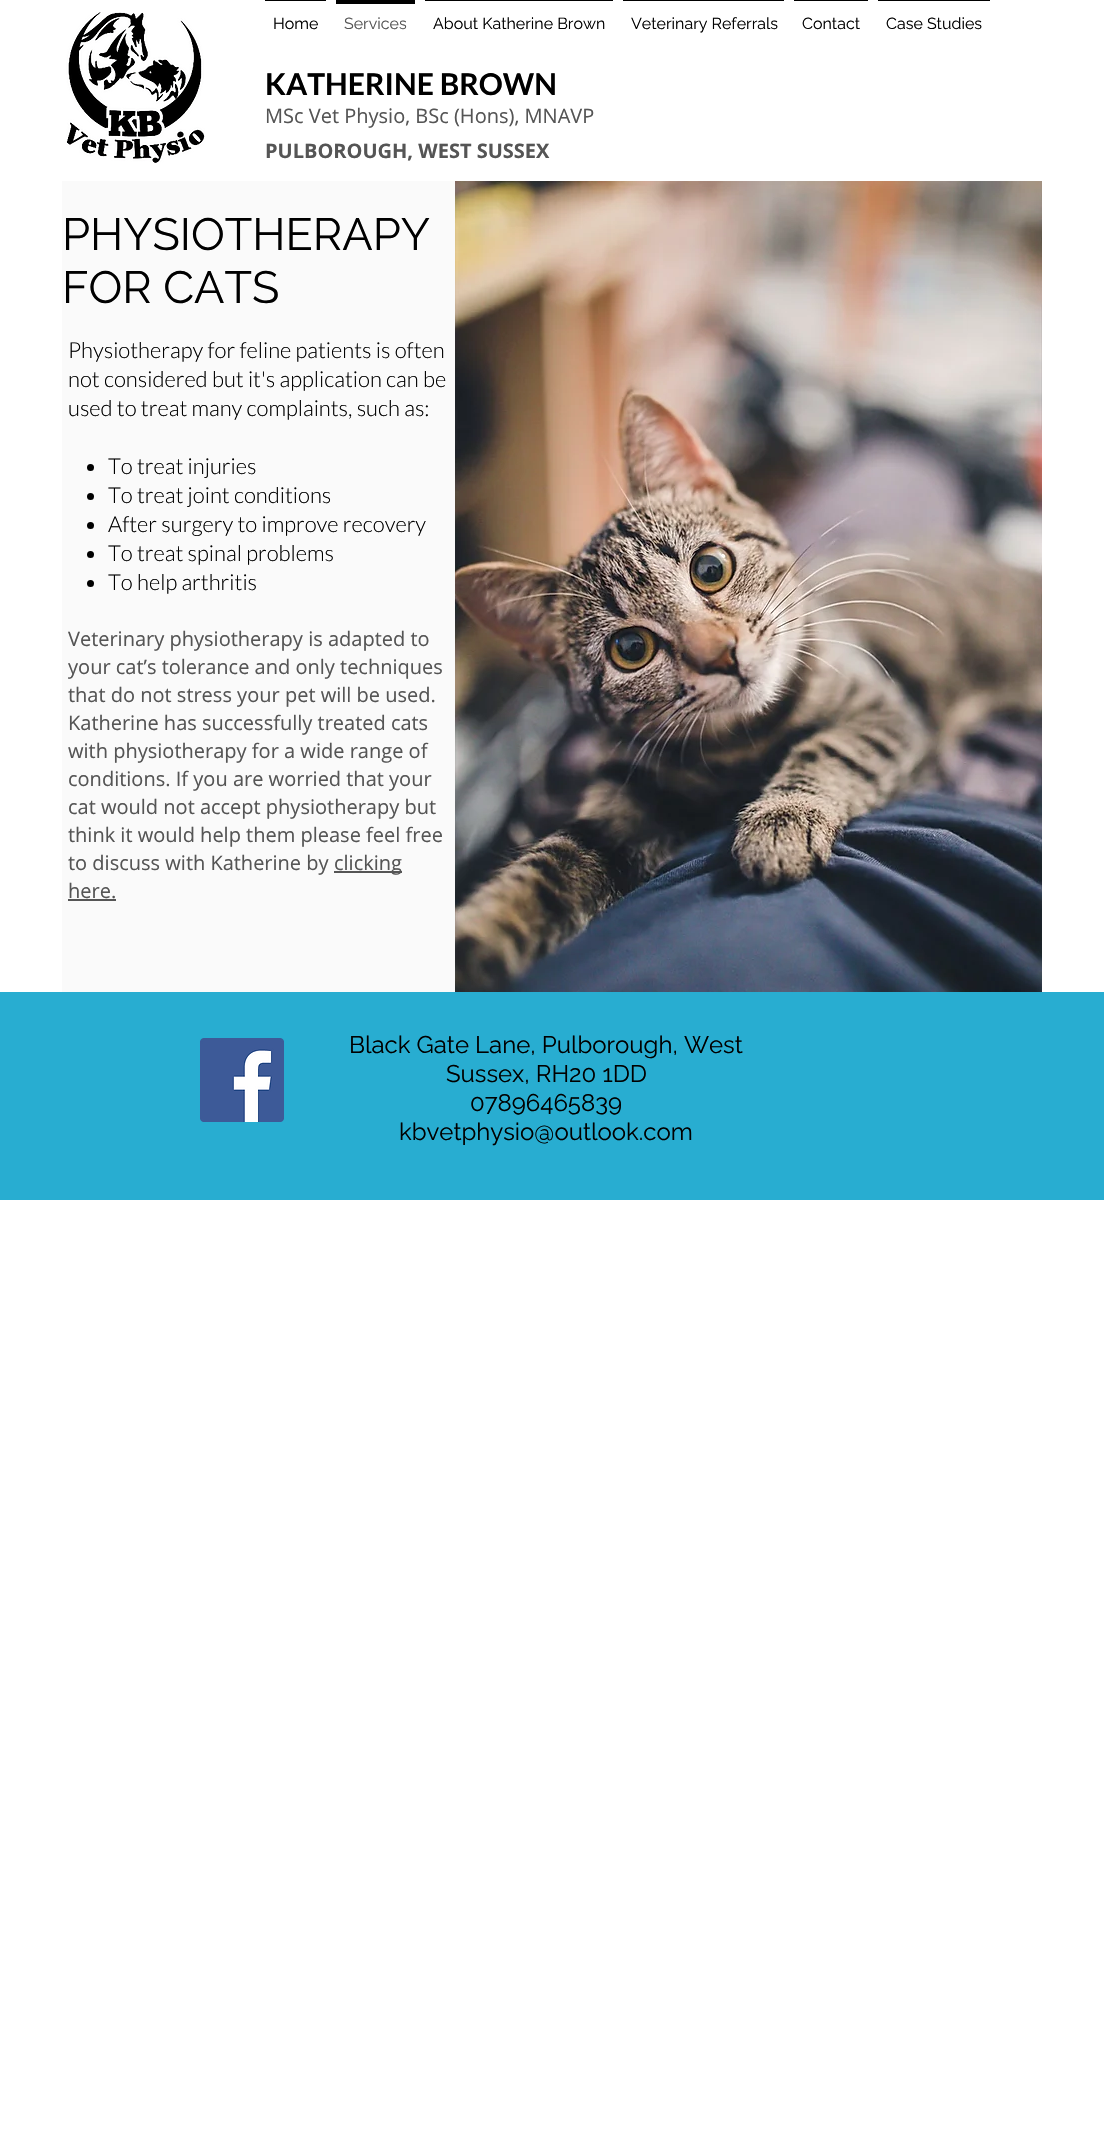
void draw(SkCanvas* canvas) {
    SkPaint paint;
    paint.setAntiAlias(true);
    auto face = [&](const char* family, int weight, float size, bool italic = false) {
        SkFontStyle style(weight, SkFontStyle::kNormal_Width,
            italic ? SkFontStyle::kItalic_Slant : SkFontStyle::kUpright_Slant);
        SkFont result(fontMgr->matchFamilyStyle(family, style), size);
        result.setSubpixel(true);
        return result;
    };
    auto write = [&](const char* s, float x, float y, const SkFont& font, SkColor color) {
        SkPaint ink(SkColor4f::FromColor(color));
        ink.setAntiAlias(true);
        canvas->drawString(s, x, y, font, ink);
    };
    auto block = [&](float x, float y, float w, float h, SkColor color) {
        SkPaint ink(SkColor4f::FromColor(color));
        ink.setAntiAlias(true);
        canvas->drawRect(SkRect::MakeXYWH(x, y, w, h), ink);
    };
    auto paste = [&](const char* path, float x, float y, float w, float h) {
        auto image = SkImages::DeferredFromEncodedData(SkData::MakeFromFileName(path));
        canvas->drawImageRect(image, SkRect::MakeXYWH(x, y, w, h), SkSamplingOptions());
    };
    canvas->clear(SK_ColorWHITE);
    paste("pic1.png", 66, 12, 139, 151);
    block(265, 0, 61, 1, SK_ColorBLACK);
    auto kFont1 = face("Raleway", 400, 16);
    write("Home", 273, 29, kFont1, SK_ColorBLACK);
    block(336, 0, 79, 4, SK_ColorBLACK);
    write("Services", 344, 29, kFont1, SkColorSetRGB(85, 85, 85));
    block(425, 0, 188, 1, SK_ColorBLACK);
    write("About Katherine Brown", 433, 29, kFont1, SK_ColorBLACK);
    block(623, 0, 161, 1, SK_ColorBLACK);
    write("Veterinary Referrals", 631, 29, kFont1, SK_ColorBLACK);
    block(794, 0, 74, 1, SK_ColorBLACK);
    write("Contact", 802, 29, kFont1, SK_ColorBLACK);
    block(878, 0, 112, 1, SK_ColorBLACK);
    write("Case Studies", 886, 29, kFont1, SK_ColorBLACK);
    auto kFont2 = face("Lato", 700, 30);
    write("KATHERINE BROWN", 265, 95, kFont2, SK_ColorBLACK);
    auto kFont3 = face("Open Sans", 400, 20);
    write("MSc Vet Physio, BSc (Hons), MNAVP", 265, 123, kFont3, SkColorSetRGB(85, 85, 85));
    auto kFont4 = face("Open Sans", 700, 20);
    write("PULBOROUGH, WEST SUSSEX", 265, 158, kFont4, SkColorSetRGB(85, 85, 85));
    block(62, 181, 393, 811, SkColorSetRGB(250, 250, 250));
    auto kFont5 = face("Raleway", 400, 45);
    write("PHYSIOTHERAPY", 62, 250, kFont5, SK_ColorBLACK);
    write("FOR CATS", 62, 303, kFont5, SK_ColorBLACK);
    auto kFont6 = face("Lato", 300, 22);
    write("Physiotherapy for feline patients is often", 68, 358, kFont6, SK_ColorBLACK);
    write("not considered but it's application can be", 68, 387, kFont6, SK_ColorBLACK);
    write("used to treat many complaints, such as:", 68, 416, kFont6, SK_ColorBLACK);
    paint.setColor(SK_ColorBLACK);
    canvas->drawCircle(90.5f, 467.5f, 3.5f, paint);
    write("To treat injuries", 108, 474, kFont6, SK_ColorBLACK);
    canvas->drawCircle(90.5f, 496.5f, 3.5f, paint);
    write("To treat joint conditions", 108, 503, kFont6, SK_ColorBLACK);
    canvas->drawCircle(90.5f, 525.5f, 3.5f, paint);
    write("After surgery to improve recovery", 108, 532, kFont6, SK_ColorBLACK);
    canvas->drawCircle(90.5f, 554.5f, 3.5f, paint);
    write("To treat spinal problems", 108, 561, kFont6, SK_ColorBLACK);
    canvas->drawCircle(90.5f, 583.5f, 3.5f, paint);
    write("To help arthritis", 108, 590, kFont6, SK_ColorBLACK);
    write("Veterinary physiotherapy is adapted to", 68, 646, kFont3, SkColorSetRGB(85, 85, 85));
    write("your cat’s tolerance and only techniques", 68, 674, kFont3, SkColorSetRGB(85, 85, 85));
    write("that do not stress your pet will be used.", 68, 702, kFont3, SkColorSetRGB(85, 85, 85));
    write("Katherine has successfully treated cats", 68, 730, kFont3, SkColorSetRGB(85, 85, 85));
    write("with physiotherapy for a wide range of", 68, 758, kFont3, SkColorSetRGB(85, 85, 85));
    write("conditions. If you are worried that your", 68, 786, kFont3, SkColorSetRGB(85, 85, 85));
    write("cat would not accept physiotherapy but", 68, 814, kFont3, SkColorSetRGB(85, 85, 85));
    write("think it would help them please feel free", 68, 842, kFont3, SkColorSetRGB(85, 85, 85));
    write("to discuss with Katherine by", 68, 870, kFont3, SkColorSetRGB(85, 85, 85));
    block(334, 871, 68, 2, SkColorSetRGB(85, 85, 85));
    write("clicking", 334, 870, kFont3, SkColorSetRGB(85, 85, 85));
    write("here.", 68, 898, kFont3, SkColorSetRGB(85, 85, 85));
    block(68, 899, 48, 2, SkColorSetRGB(85, 85, 85));
    paste("pic2.png", 455, 181, 587, 811);
    block(0, 992, 1104, 208, SkColorSetRGB(40, 173, 209));
    paste("pic3.png", 200, 1038, 84, 84);
    auto kFont7 = face("Raleway", 400, 24);
    write("Black Gate Lane, Pulborough, West", 349, 1053, kFont7, SK_ColorBLACK);
    write("Sussex, RH20 1DD", 446, 1082, kFont7, SK_ColorBLACK);
    write("07896465839", 470, 1111, kFont7, SK_ColorBLACK);
    write("kbvetphysio@outlook.com", 399, 1140, kFont7, SK_ColorBLACK);
}
